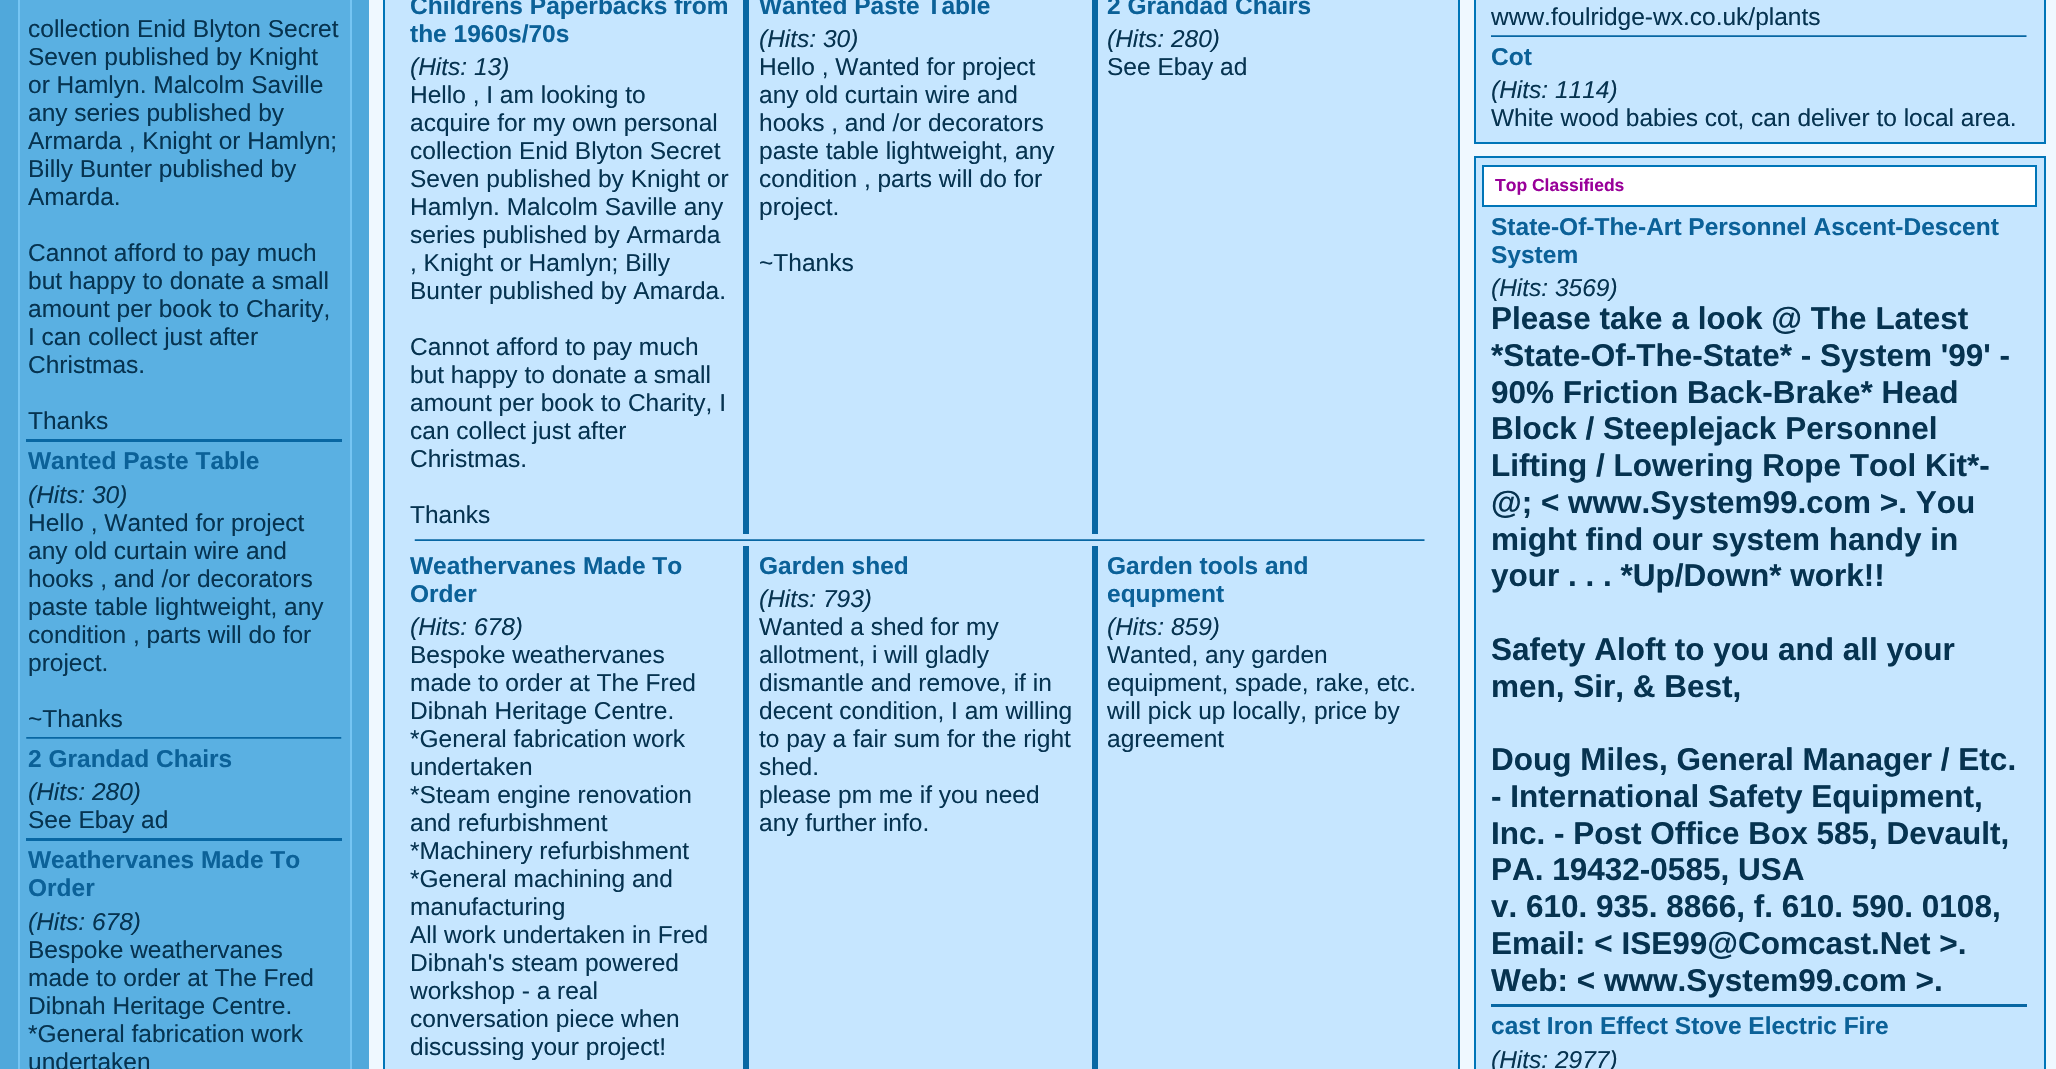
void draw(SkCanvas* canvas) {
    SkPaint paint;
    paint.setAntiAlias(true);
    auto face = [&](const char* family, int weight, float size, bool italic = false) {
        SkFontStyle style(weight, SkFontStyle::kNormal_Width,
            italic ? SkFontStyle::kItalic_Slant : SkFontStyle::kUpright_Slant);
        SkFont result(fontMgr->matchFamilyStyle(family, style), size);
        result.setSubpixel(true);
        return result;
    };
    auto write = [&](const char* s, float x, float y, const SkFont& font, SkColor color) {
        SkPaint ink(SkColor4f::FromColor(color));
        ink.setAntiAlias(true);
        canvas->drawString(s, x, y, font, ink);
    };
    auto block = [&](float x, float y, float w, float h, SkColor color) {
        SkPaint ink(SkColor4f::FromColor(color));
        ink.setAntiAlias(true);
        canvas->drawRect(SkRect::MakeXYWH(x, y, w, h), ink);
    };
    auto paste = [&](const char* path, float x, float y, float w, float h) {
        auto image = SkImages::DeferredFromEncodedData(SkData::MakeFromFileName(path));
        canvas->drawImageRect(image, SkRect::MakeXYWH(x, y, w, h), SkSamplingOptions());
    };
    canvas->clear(SkColorSetRGB(80, 168, 219));
    paint.setColor(SkColorSetRGB(90, 176, 226));
    canvas->drawRect(SkRect::MakeXYWH(19, -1, 332, 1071), paint);
    paint.setStyle(SkPaint::kStroke_Style);
    paint.setStrokeWidth(2);
    paint.setColor(SkColorSetRGB(118, 197, 243));
    canvas->drawRect(SkRect::MakeXYWH(19, -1, 332, 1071), paint);
    auto kFont1 = face("Liberation Sans", 400, 24.5f);
    write("collection Enid Blyton Secret", 28, 37, kFont1, SkColorSetRGB(6, 51, 80));
    write("Seven published by Knight", 28, 65, kFont1, SkColorSetRGB(6, 51, 80));
    write("or Hamlyn. Malcolm Saville", 28, 93, kFont1, SkColorSetRGB(6, 51, 80));
    write("any series published by", 28, 121, kFont1, SkColorSetRGB(6, 51, 80));
    write("Armarda , Knight or Hamlyn;", 28, 149, kFont1, SkColorSetRGB(6, 51, 80));
    write("Billy Bunter published by", 28, 177, kFont1, SkColorSetRGB(6, 51, 80));
    write("Amarda.", 28, 205, kFont1, SkColorSetRGB(6, 51, 80));
    write("Cannot afford to pay much", 28, 261, kFont1, SkColorSetRGB(6, 51, 80));
    write("but happy to donate a small", 28, 289, kFont1, SkColorSetRGB(6, 51, 80));
    write("amount per book to Charity,", 28, 317, kFont1, SkColorSetRGB(6, 51, 80));
    write("I can collect just after", 28, 345, kFont1, SkColorSetRGB(6, 51, 80));
    write("Christmas.", 28, 373, kFont1, SkColorSetRGB(6, 51, 80));
    write("Thanks", 28, 429, kFont1, SkColorSetRGB(6, 51, 80));
    block(26, 439, 316, 3, SkColorSetRGB(8, 103, 163));
    auto kFont2 = face("Liberation Sans", 700, 24.5f);
    write("Wanted Paste Table", 28, 469, kFont2, SkColorSetRGB(11, 97, 152));
    auto kFont3 = face("Liberation Sans", 400, 24.5f, true);
    write("(Hits: 30)", 28, 503, kFont3, SkColorSetRGB(6, 51, 80));
    write("Hello , Wanted for project", 28, 531, kFont1, SkColorSetRGB(6, 51, 80));
    write("any old curtain wire and", 28, 559, kFont1, SkColorSetRGB(6, 51, 80));
    write("hooks , and /or decorators", 28, 587, kFont1, SkColorSetRGB(6, 51, 80));
    write("paste table lightweight, any", 28, 615, kFont1, SkColorSetRGB(6, 51, 80));
    write("condition , parts will do for", 28, 643, kFont1, SkColorSetRGB(6, 51, 80));
    write("project.", 28, 671, kFont1, SkColorSetRGB(6, 51, 80));
    write("~Thanks", 28, 727, kFont1, SkColorSetRGB(6, 51, 80));
    paste("pic1.png", 26, 737, 316, 2);
    write("2 Grandad Chairs", 28, 767, kFont2, SkColorSetRGB(11, 97, 152));
    write("(Hits: 280)", 28, 800, kFont3, SkColorSetRGB(6, 51, 80));
    write("See Ebay ad", 28, 828, kFont1, SkColorSetRGB(6, 51, 80));
    block(26, 838, 316, 3, SkColorSetRGB(8, 103, 163));
    write("Weathervanes Made To", 28, 868, kFont2, SkColorSetRGB(11, 97, 152));
    write("Order", 28, 896, kFont2, SkColorSetRGB(11, 97, 152));
    write("(Hits: 678)", 28, 930, kFont3, SkColorSetRGB(6, 51, 80));
    write("Bespoke weathervanes", 28, 958, kFont1, SkColorSetRGB(6, 51, 80));
    write("made to order at The Fred", 28, 986, kFont1, SkColorSetRGB(6, 51, 80));
    write("Dibnah Heritage Centre.", 28, 1014, kFont1, SkColorSetRGB(6, 51, 80));
    write("*General fabrication work", 28, 1042, kFont1, SkColorSetRGB(6, 51, 80));
    write("undertaken", 28, 1070, kFont1, SkColorSetRGB(6, 51, 80));
    block(369, 0, 1687, 1069, SkColorSetRGB(239, 248, 255));
    paint.setStyle(SkPaint::kFill_Style);
    paint.setColor(SkColorSetRGB(198, 230, 255));
    canvas->drawRect(SkRect::MakeXYWH(384, -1, 1075, 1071), paint);
    paint.setStyle(SkPaint::kStroke_Style);
    paint.setColor(SkColorSetRGB(0, 117, 184));
    canvas->drawRect(SkRect::MakeXYWH(384, -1, 1075, 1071), paint);
    write("Childrens Paperbacks from", 410, 14, kFont2, SkColorSetRGB(11, 97, 152));
    write("the 1960s/70s", 410, 42, kFont2, SkColorSetRGB(11, 97, 152));
    write("(Hits: 13)", 410, 75, kFont3, SkColorSetRGB(6, 51, 80));
    write("Hello , I am looking to", 410, 103, kFont1, SkColorSetRGB(6, 51, 80));
    write("acquire for my own personal", 410, 131, kFont1, SkColorSetRGB(6, 51, 80));
    write("collection Enid Blyton Secret", 410, 159, kFont1, SkColorSetRGB(6, 51, 80));
    write("Seven published by Knight or", 410, 187, kFont1, SkColorSetRGB(6, 51, 80));
    write("Hamlyn. Malcolm Saville any", 410, 215, kFont1, SkColorSetRGB(6, 51, 80));
    write("series published by Armarda", 410, 243, kFont1, SkColorSetRGB(6, 51, 80));
    write(", Knight or Hamlyn; Billy", 410, 271, kFont1, SkColorSetRGB(6, 51, 80));
    write("Bunter published by Amarda.", 410, 299, kFont1, SkColorSetRGB(6, 51, 80));
    write("Cannot afford to pay much", 410, 355, kFont1, SkColorSetRGB(6, 51, 80));
    write("but happy to donate a small", 410, 383, kFont1, SkColorSetRGB(6, 51, 80));
    write("amount per book to Charity, I", 410, 411, kFont1, SkColorSetRGB(6, 51, 80));
    write("can collect just after", 410, 439, kFont1, SkColorSetRGB(6, 51, 80));
    write("Christmas.", 410, 467, kFont1, SkColorSetRGB(6, 51, 80));
    write("Thanks", 410, 523, kFont1, SkColorSetRGB(6, 51, 80));
    block(743, 0, 6, 534, SkColorSetRGB(8, 103, 163));
    write("Wanted Paste Table", 759, 14, kFont2, SkColorSetRGB(11, 97, 152));
    write("(Hits: 30)", 759, 47, kFont3, SkColorSetRGB(6, 51, 80));
    write("Hello , Wanted for project", 759, 75, kFont1, SkColorSetRGB(6, 51, 80));
    write("any old curtain wire and", 759, 103, kFont1, SkColorSetRGB(6, 51, 80));
    write("hooks , and /or decorators", 759, 131, kFont1, SkColorSetRGB(6, 51, 80));
    write("paste table lightweight, any", 759, 159, kFont1, SkColorSetRGB(6, 51, 80));
    write("condition , parts will do for", 759, 187, kFont1, SkColorSetRGB(6, 51, 80));
    write("project.", 759, 215, kFont1, SkColorSetRGB(6, 51, 80));
    write("~Thanks", 759, 271, kFont1, SkColorSetRGB(6, 51, 80));
    block(1092, 0, 6, 534, SkColorSetRGB(8, 103, 163));
    write("2 Grandad Chairs", 1107, 14, kFont2, SkColorSetRGB(11, 97, 152));
    write("(Hits: 280)", 1107, 47, kFont3, SkColorSetRGB(6, 51, 80));
    write("See Ebay ad", 1107, 75, kFont1, SkColorSetRGB(6, 51, 80));
    paste("pic2.png", 414, 539, 1011, 2);
    write("Weathervanes Made To", 410, 574, kFont2, SkColorSetRGB(11, 97, 152));
    write("Order", 410, 602, kFont2, SkColorSetRGB(11, 97, 152));
    write("(Hits: 678)", 410, 635, kFont3, SkColorSetRGB(6, 51, 80));
    write("Bespoke weathervanes", 410, 663, kFont1, SkColorSetRGB(6, 51, 80));
    write("made to order at The Fred", 410, 691, kFont1, SkColorSetRGB(6, 51, 80));
    write("Dibnah Heritage Centre.", 410, 719, kFont1, SkColorSetRGB(6, 51, 80));
    write("*General fabrication work", 410, 747, kFont1, SkColorSetRGB(6, 51, 80));
    write("undertaken", 410, 775, kFont1, SkColorSetRGB(6, 51, 80));
    write("*Steam engine renovation", 410, 803, kFont1, SkColorSetRGB(6, 51, 80));
    write("and refurbishment", 410, 831, kFont1, SkColorSetRGB(6, 51, 80));
    write("*Machinery refurbishment", 410, 859, kFont1, SkColorSetRGB(6, 51, 80));
    write("*General machining and", 410, 887, kFont1, SkColorSetRGB(6, 51, 80));
    write("manufacturing", 410, 915, kFont1, SkColorSetRGB(6, 51, 80));
    write("All work undertaken in Fred", 410, 943, kFont1, SkColorSetRGB(6, 51, 80));
    write("Dibnah's steam powered", 410, 971, kFont1, SkColorSetRGB(6, 51, 80));
    write("workshop - a real", 410, 999, kFont1, SkColorSetRGB(6, 51, 80));
    write("conversation piece when", 410, 1027, kFont1, SkColorSetRGB(6, 51, 80));
    write("discussing your project!", 410, 1055, kFont1, SkColorSetRGB(6, 51, 80));
    block(743, 546, 6, 523, SkColorSetRGB(8, 103, 163));
    write("Garden shed", 759, 574, kFont2, SkColorSetRGB(11, 97, 152));
    write("(Hits: 793)", 759, 607, kFont3, SkColorSetRGB(6, 51, 80));
    write("Wanted a shed for my", 759, 635, kFont1, SkColorSetRGB(6, 51, 80));
    write("allotment, i will gladly", 759, 663, kFont1, SkColorSetRGB(6, 51, 80));
    write("dismantle and remove, if in", 759, 691, kFont1, SkColorSetRGB(6, 51, 80));
    write("decent condition, I am willing", 759, 719, kFont1, SkColorSetRGB(6, 51, 80));
    write("to pay a fair sum for the right", 759, 747, kFont1, SkColorSetRGB(6, 51, 80));
    write("shed.", 759, 775, kFont1, SkColorSetRGB(6, 51, 80));
    write("please pm me if you need", 759, 803, kFont1, SkColorSetRGB(6, 51, 80));
    write("any further info.", 759, 831, kFont1, SkColorSetRGB(6, 51, 80));
    block(1092, 546, 6, 523, SkColorSetRGB(8, 103, 163));
    write("Garden tools and", 1107, 574, kFont2, SkColorSetRGB(11, 97, 152));
    write("equpment", 1107, 602, kFont2, SkColorSetRGB(11, 97, 152));
    write("(Hits: 859)", 1107, 635, kFont3, SkColorSetRGB(6, 51, 80));
    write("Wanted, any garden", 1107, 663, kFont1, SkColorSetRGB(6, 51, 80));
    write("equipment, spade, rake, etc.", 1107, 691, kFont1, SkColorSetRGB(6, 51, 80));
    write("will pick up locally, price by", 1107, 719, kFont1, SkColorSetRGB(6, 51, 80));
    write("agreement", 1107, 747, kFont1, SkColorSetRGB(6, 51, 80));
    paint.setStyle(SkPaint::kFill_Style);
    paint.setColor(SkColorSetRGB(198, 230, 255));
    canvas->drawRect(SkRect::MakeXYWH(1475, -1, 570, 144), paint);
    paint.setStyle(SkPaint::kStroke_Style);
    paint.setColor(SkColorSetRGB(0, 117, 184));
    canvas->drawRect(SkRect::MakeXYWH(1475, -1, 570, 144), paint);
    write("www.foulridge-wx.co.uk/plants", 1491, 25, kFont1, SkColorSetRGB(6, 51, 80));
    paste("pic3.png", 1491, 35, 536, 2);
    write("Cot", 1491, 65, kFont2, SkColorSetRGB(11, 97, 152));
    write("(Hits: 1114)", 1491, 98, kFont3, SkColorSetRGB(6, 51, 80));
    write("White wood babies cot, can deliver to local area.", 1491, 126, kFont1, SkColorSetRGB(6, 51, 80));
    paint.setStyle(SkPaint::kFill_Style);
    paint.setColor(SkColorSetRGB(198, 230, 255));
    canvas->drawRect(SkRect::MakeXYWH(1475, 157, 570, 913), paint);
    paint.setStyle(SkPaint::kStroke_Style);
    paint.setColor(SkColorSetRGB(0, 117, 184));
    canvas->drawRect(SkRect::MakeXYWH(1475, 157, 570, 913), paint);
    paint.setStyle(SkPaint::kFill_Style);
    paint.setColor(SK_ColorWHITE);
    canvas->drawRect(SkRect::MakeXYWH(1483, 166, 553, 40), paint);
    paint.setStyle(SkPaint::kStroke_Style);
    paint.setColor(SkColorSetRGB(0, 117, 184));
    canvas->drawRect(SkRect::MakeXYWH(1483, 166, 553, 40), paint);
    auto kFont4 = face("Liberation Sans", 700, 17.5f);
    write("Top Classifieds", 1495, 191, kFont4, SkColorSetRGB(153, 0, 153));
    write("State-Of-The-Art Personnel Ascent-Descent", 1491, 235, kFont2, SkColorSetRGB(11, 97, 152));
    write("System", 1491, 263, kFont2, SkColorSetRGB(11, 97, 152));
    write("(Hits: 3569)", 1491, 296, kFont3, SkColorSetRGB(6, 51, 80));
    auto kFont5 = face("Liberation Sans", 700, 31.5f);
    write("Please take a look @ The Latest", 1491, 329, kFont5, SkColorSetRGB(6, 51, 80));
    write("*State-Of-The-State* - System '99' -", 1491, 366, kFont5, SkColorSetRGB(6, 51, 80));
    write("90% Friction Back-Brake* Head", 1491, 403, kFont5, SkColorSetRGB(6, 51, 80));
    write("Block / Steeplejack Personnel", 1491, 439, kFont5, SkColorSetRGB(6, 51, 80));
    write("Lifting / Lowering Rope Tool Kit*-", 1491, 476, kFont5, SkColorSetRGB(6, 51, 80));
    write("@; < www.System99.com >. You", 1491, 513, kFont5, SkColorSetRGB(6, 51, 80));
    write("might find our system handy in", 1491, 550, kFont5, SkColorSetRGB(6, 51, 80));
    write("your . . . *Up/Down* work!!", 1491, 586, kFont5, SkColorSetRGB(6, 51, 80));
    write("Safety Aloft to you and all your", 1491, 660, kFont5, SkColorSetRGB(6, 51, 80));
    write("men, Sir, & Best,", 1491, 697, kFont5, SkColorSetRGB(6, 51, 80));
    write("Doug Miles, General Manager / Etc.", 1491, 770, kFont5, SkColorSetRGB(6, 51, 80));
    write("- International Safety Equipment,", 1491, 807, kFont5, SkColorSetRGB(6, 51, 80));
    write("Inc. - Post Office Box 585, Devault,", 1491, 844, kFont5, SkColorSetRGB(6, 51, 80));
    write("PA. 19432-0585, USA", 1491, 880, kFont5, SkColorSetRGB(6, 51, 80));
    write("v. 610. 935. 8866, f. 610. 590. 0108,", 1491, 917, kFont5, SkColorSetRGB(6, 51, 80));
    write("Email: < ISE99@Comcast.Net >.", 1491, 954, kFont5, SkColorSetRGB(6, 51, 80));
    write("Web: < www.System99.com >.", 1491, 991, kFont5, SkColorSetRGB(6, 51, 80));
    block(1491, 1004, 536, 3, SkColorSetRGB(8, 103, 163));
    write("cast Iron Effect Stove Electric Fire", 1491, 1034, kFont2, SkColorSetRGB(11, 97, 152));
    write("(Hits: 2977)", 1491, 1068, kFont3, SkColorSetRGB(6, 51, 80));
}
